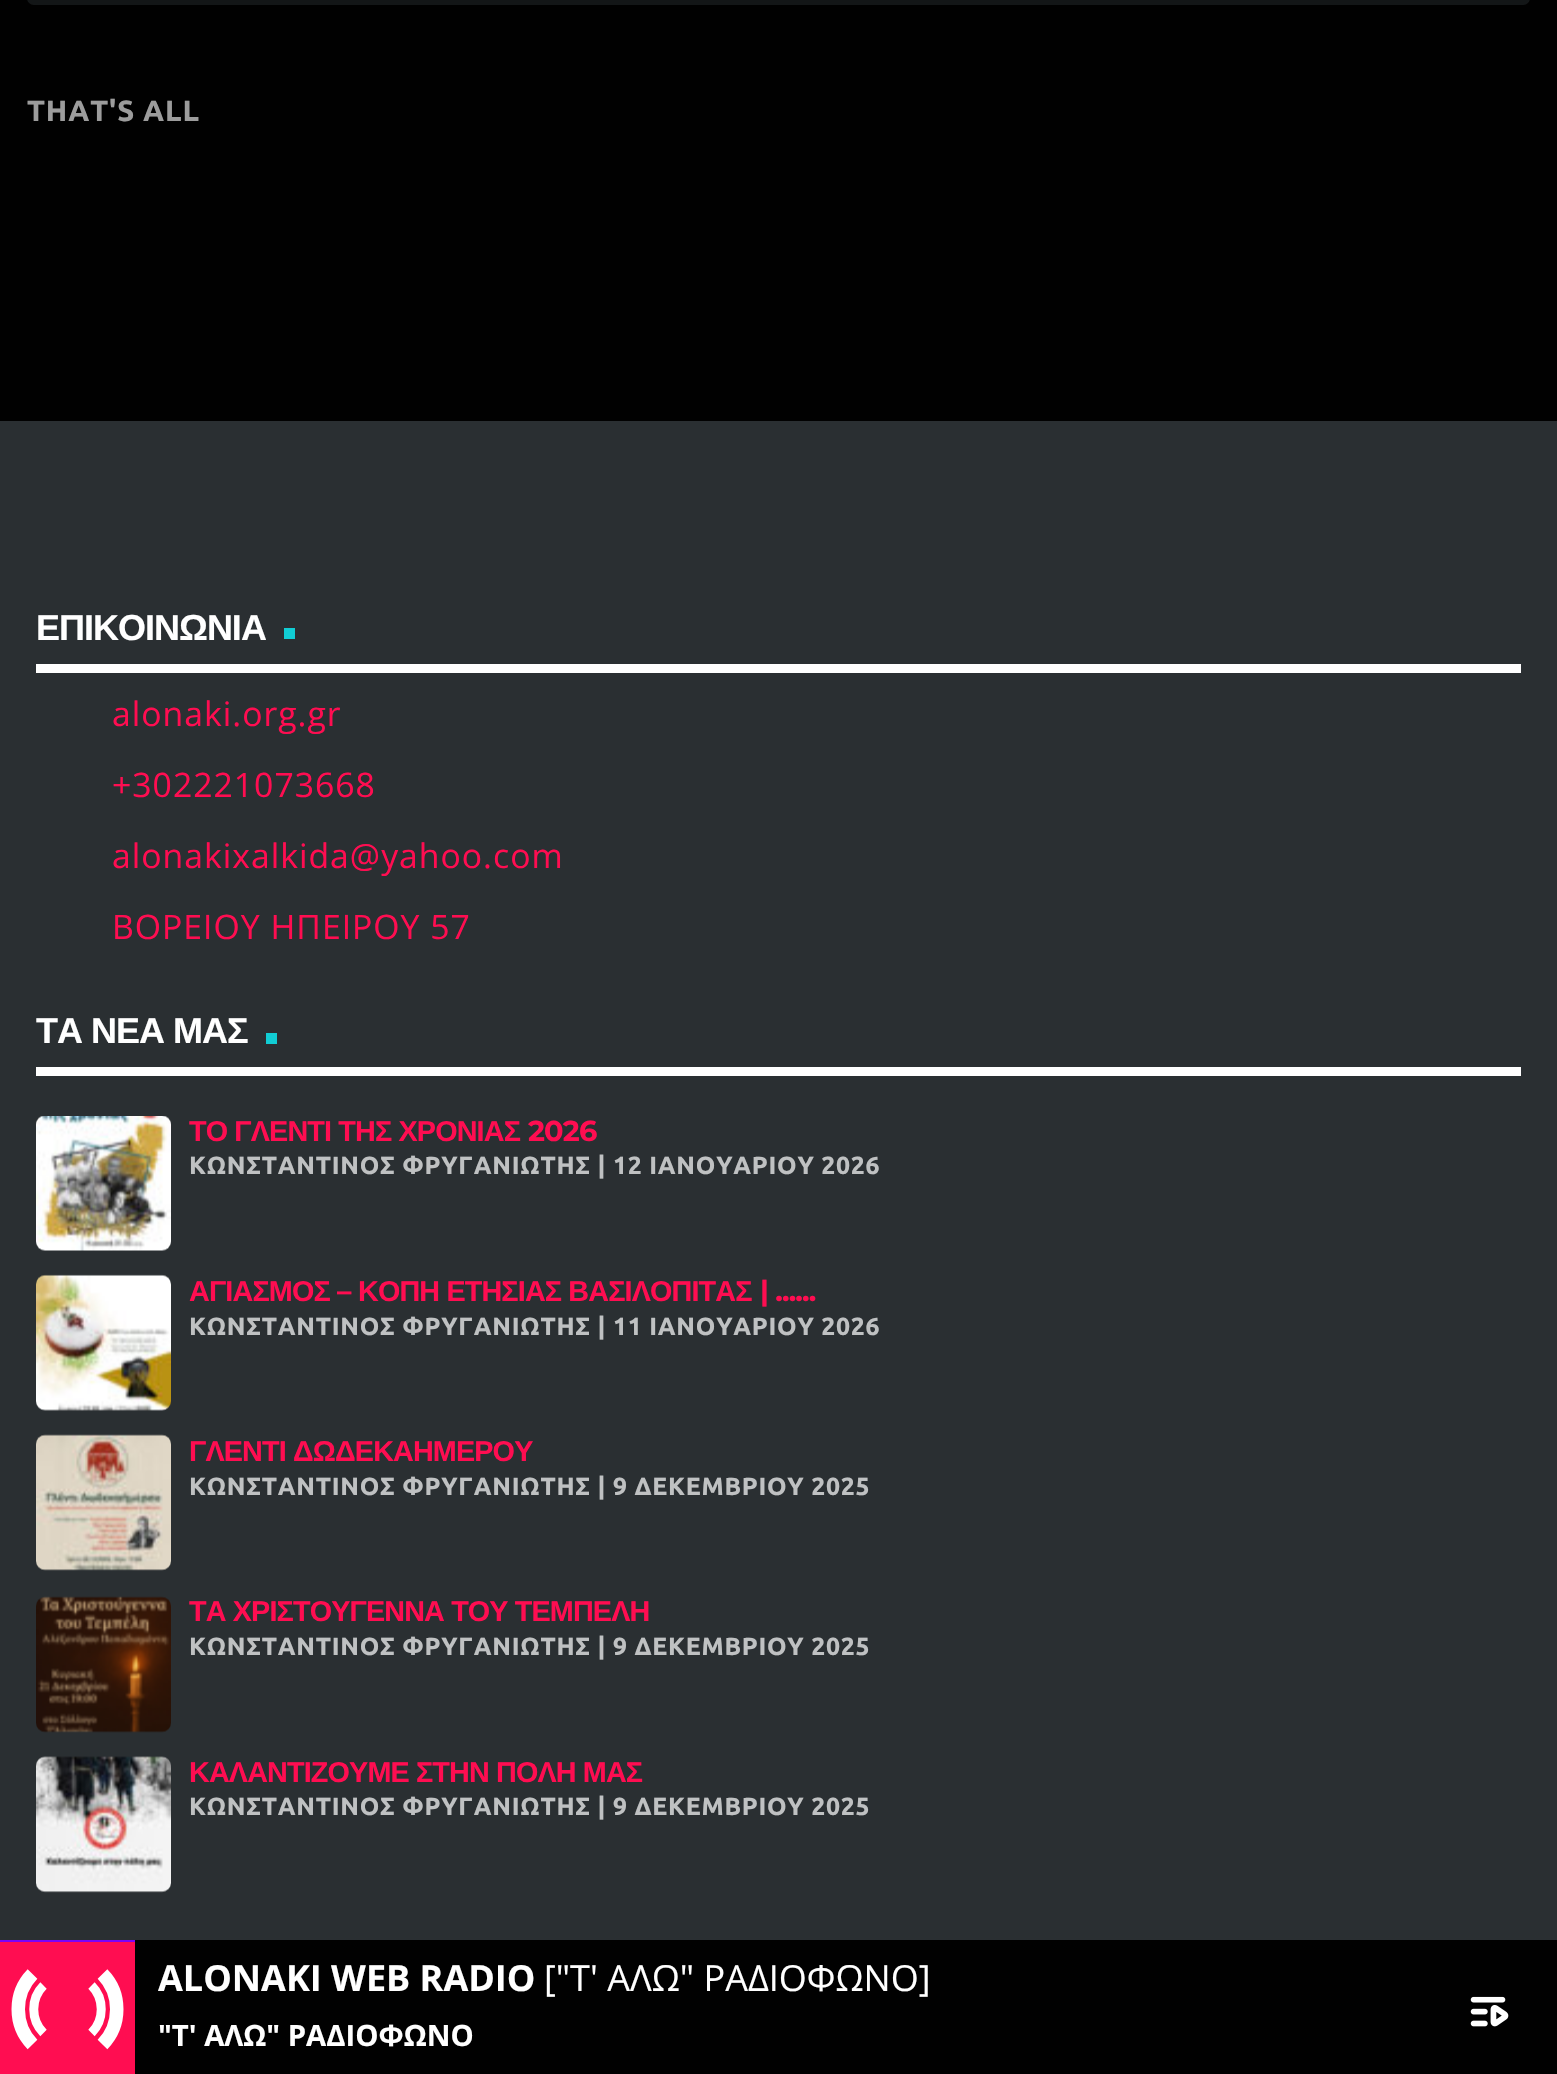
void draw(SkCanvas* canvas) {
    SkPaint paint;
    paint.setAntiAlias(true);
    auto face = [&](const char* family, int weight, float size, bool italic = false) {
        SkFontStyle style(weight, SkFontStyle::kNormal_Width,
            italic ? SkFontStyle::kItalic_Slant : SkFontStyle::kUpright_Slant);
        SkFont result(fontMgr->matchFamilyStyle(family, style), size);
        result.setSubpixel(true);
        return result;
    };
    auto write = [&](const char* s, float x, float y, const SkFont& font, SkColor color) {
        SkPaint ink(SkColor4f::FromColor(color));
        ink.setAntiAlias(true);
        canvas->drawString(s, x, y, font, ink);
    };
    auto writeSpaced = [&](const char* s, float x, float y, const SkFont& font, const SkPaint& ink, float letter, float word) {
        std::vector<SkGlyphID> glyphs(font.countText(s, strlen(s), SkTextEncoding::kUTF8));
        std::vector<float> xs(glyphs.size());
        font.textToGlyphs(s, strlen(s), SkTextEncoding::kUTF8, glyphs);
        font.getXPos(glyphs, xs, x);
        float extra = 0;
        for (size_t i = 0; i < glyphs.size(); i++) {
            xs[i] += extra;
            extra += letter + word * (glyphs[i] == font.unicharToGlyph(' '));
        }
        canvas->drawTextBlob(SkTextBlob::MakeFromPosHGlyphs(glyphs, xs, y, font), 0, 0, ink);
    };
    auto block = [&](float x, float y, float w, float h, SkColor color) {
        SkPaint ink(SkColor4f::FromColor(color));
        ink.setAntiAlias(true);
        canvas->drawRect(SkRect::MakeXYWH(x, y, w, h), ink);
    };
    auto card = [&](float x, float y, float w, float h, float radius, SkColor color) {
        SkPaint ink(SkColor4f::FromColor(color));
        ink.setAntiAlias(true);
        canvas->drawRoundRect(SkRect::MakeXYWH(x, y, w, h), radius, radius, ink);
    };
    auto paste = [&](const char* path, float x, float y, float w, float h) {
        auto image = SkImages::DeferredFromEncodedData(SkData::MakeFromFileName(path));
        canvas->drawImageRect(image, SkRect::MakeXYWH(x, y, w, h), SkSamplingOptions());
    };
    canvas->clear(SkColorSetRGB(1, 1, 1));
    card(27, -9, 1503, 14, 9, SkColorSetRGB(19, 22, 23));
    auto kFont1 = face("Ubuntu", 700, 29.25f);
    paint.setColor(SkColorSetRGB(156, 156, 156));
    writeSpaced("THAT'S ALL", 27, 121, kFont1, paint, 0.9f, 0);
    block(0, 421, 1557, 1519, SkColorSetRGB(42, 47, 50));
    block(36, 664, 1485, 9, SK_ColorWHITE);
    auto kFont2 = face("Liberation Sans", 700, 36);
    paint.setColor(SK_ColorWHITE);
    writeSpaced("ΕΠΙΚΟΙΝΩΝΙΑ", 36, 640, kFont2, paint, -1, 0);
    block(284, 628, 11, 11, SkColorSetRGB(17, 205, 212));
    auto kFont3 = face("Open Sans", 400, 33.75f);
    paint.setColor(SkColorSetRGB(255, 13, 81));
    writeSpaced("alonaki.org.gr", 112, 726, kFont3, paint, 1, 0);
    writeSpaced("+302221073668", 112, 797, kFont3, paint, 1, 0);
    writeSpaced("alonakixalkida@yahoo.com", 112, 868, kFont3, paint, 1, 0);
    writeSpaced("ΒΟΡΕΙΟΥ ΗΠΕΙΡΟΥ 57", 112, 939, kFont3, paint, 1, 0);
    block(36, 1067, 1485, 9, SK_ColorWHITE);
    paint.setColor(SK_ColorWHITE);
    writeSpaced("ΤΑ ΝΕΑ ΜΑΣ", 36, 1043, kFont2, paint, -1, 0);
    block(266, 1033, 11, 11, SkColorSetRGB(17, 205, 212));
    paste("pic1.png", 36, 1116, 135, 135);
    auto kFont4 = face("Liberation Sans", 700, 28.75f);
    paint.setColor(SkColorSetRGB(255, 13, 81));
    writeSpaced("ΤΟ ΓΛΕΝΤΙ ΤΗΣ ΧΡΟΝΙΑΣ", 189, 1141, kFont4, paint, -0.85f, 0);
    auto kFont5 = face("Montserrat", 100, 28.75f);
    writeSpaced("2026", 528, 1141, kFont5, paint, -0.85f, 0);
    auto kFont6 = face("Ubuntu", 700, 24.75f);
    paint.setColor(SkColorSetRGB(191, 193, 194));
    writeSpaced("ΚΩΝΣΤΑΝΤΙΝΟΣ ΦΡΥΓΑΝΙΩΤΗΣ | 12 ΙΑΝΟΥΑΡΙΟΥ 2026", 189, 1174, kFont6, paint, 0.75f, 0);
    paste("pic2.png", 36, 1274, 135, 137);
    paint.setColor(SkColorSetRGB(255, 13, 81));
    writeSpaced("ΑΓΙΑΣΜΟΣ", 189, 1301, kFont4, paint, -0.85f, 0);
    writeSpaced("–", 337, 1301, kFont5, paint, -0.85f, 0);
    writeSpaced("ΚΟΠΗ ΕΤΗΣΙΑΣ ΒΑΣΙΛΟΠΙΤΑΣ", 358, 1301, kFont4, paint, -0.85f, 0);
    writeSpaced("| ......", 760, 1301, kFont5, paint, -0.85f, 0);
    paint.setColor(SkColorSetRGB(191, 193, 194));
    writeSpaced("ΚΩΝΣΤΑΝΤΙΝΟΣ ΦΡΥΓΑΝΙΩΤΗΣ | 11 ΙΑΝΟΥΑΡΙΟΥ 2026", 189, 1335, kFont6, paint, 0.75f, 0);
    paste("pic3.png", 36, 1434, 135, 137);
    paint.setColor(SkColorSetRGB(255, 13, 81));
    writeSpaced("ΓΛΕΝΤΙ ΔΩΔΕΚΑΗΜΕΡΟΥ", 189, 1461, kFont4, paint, -0.85f, 0);
    paint.setColor(SkColorSetRGB(191, 193, 194));
    writeSpaced("ΚΩΝΣΤΑΝΤΙΝΟΣ ΦΡΥΓΑΝΙΩΤΗΣ | 9 ΔΕΚΕΜΒΡΙΟΥ 2025", 189, 1495, kFont6, paint, 0.75f, 0);
    paste("pic4.png", 36, 1596, 135, 137);
    paint.setColor(SkColorSetRGB(255, 13, 81));
    writeSpaced("ΤΑ ΧΡΙΣΤΟΥΓΕΝΝΑ ΤΟΥ ΤΕΜΠΕΛΗ", 189, 1621, kFont4, paint, -0.85f, 0);
    paint.setColor(SkColorSetRGB(191, 193, 194));
    writeSpaced("ΚΩΝΣΤΑΝΤΙΝΟΣ ΦΡΥΓΑΝΙΩΤΗΣ | 9 ΔΕΚΕΜΒΡΙΟΥ 2025", 189, 1655, kFont6, paint, 0.75f, 0);
    paste("pic5.png", 36, 1756, 135, 137);
    paint.setColor(SkColorSetRGB(255, 13, 81));
    writeSpaced("ΚΑΛΑΝΤΙΖΟΥΜΕ ΣΤΗΝ ΠΟΛΗ ΜΑΣ", 189, 1782, kFont4, paint, -0.85f, 0);
    paint.setColor(SkColorSetRGB(191, 193, 194));
    writeSpaced("ΚΩΝΣΤΑΝΤΙΝΟΣ ΦΡΥΓΑΝΙΩΤΗΣ | 9 ΔΕΚΕΜΒΡΙΟΥ 2025", 189, 1815, kFont6, paint, 0.75f, 0);
    block(0, 1940, 135, 2, SkColorSetRGB(124, 3, 246));
    block(0, 1942, 135, 132, SkColorSetRGB(255, 13, 81));
    paint.setStyle(SkPaint::kStroke_Style);
    paint.setStrokeWidth(9);
    paint.setColor(SK_ColorWHITE);
    canvas->drawPath(SkPathBuilder().moveTo(91.5f, 1985.5f).cubicTo(104.5f, 1998.5f, 104.5f, 2020, 91.5f, 2033).detach(), paint);
    paint.setStrokeWidth(13.5f);
    canvas->drawPath(SkPathBuilder().moveTo(102.5f, 1974).cubicTo(121.5f, 1993.5f, 121.5f, 2025, 102.5f, 2044.5f).detach(), paint);
    paint.setStrokeWidth(9);
    canvas->drawPath(SkPathBuilder().moveTo(43.5f, 2033).cubicTo(30.5f, 2020, 30.5f, 1998.5f, 43.5f, 1985.5f).detach(), paint);
    paint.setStrokeWidth(13.5f);
    canvas->drawPath(SkPathBuilder().moveTo(32.5f, 2044.5f).cubicTo(13.5f, 2025, 13.5f, 1993.5f, 32.5f, 1974).detach(), paint);
    auto kFont7 = face("Open Sans", 700, 36);
    write("ALONAKI WEB RADIO", 158, 1991, kFont7, SK_ColorWHITE);
    auto kFont8 = face("Open Sans", 400, 36);
    write("[\"Τ' ΑΛΩ\" ΡΑΔΙΟΦΩΝΟ]", 544, 1991, kFont8, SK_ColorWHITE);
    auto kFont9 = face("Open Sans", 700, 29.25f);
    write("\"Τ' ΑΛΩ\" ΡΑΔΙΟΦΩΝΟ", 158, 2046, kFont9, SK_ColorWHITE);
    paste("pic6.png", 1470, 1996, 39, 31);
}
